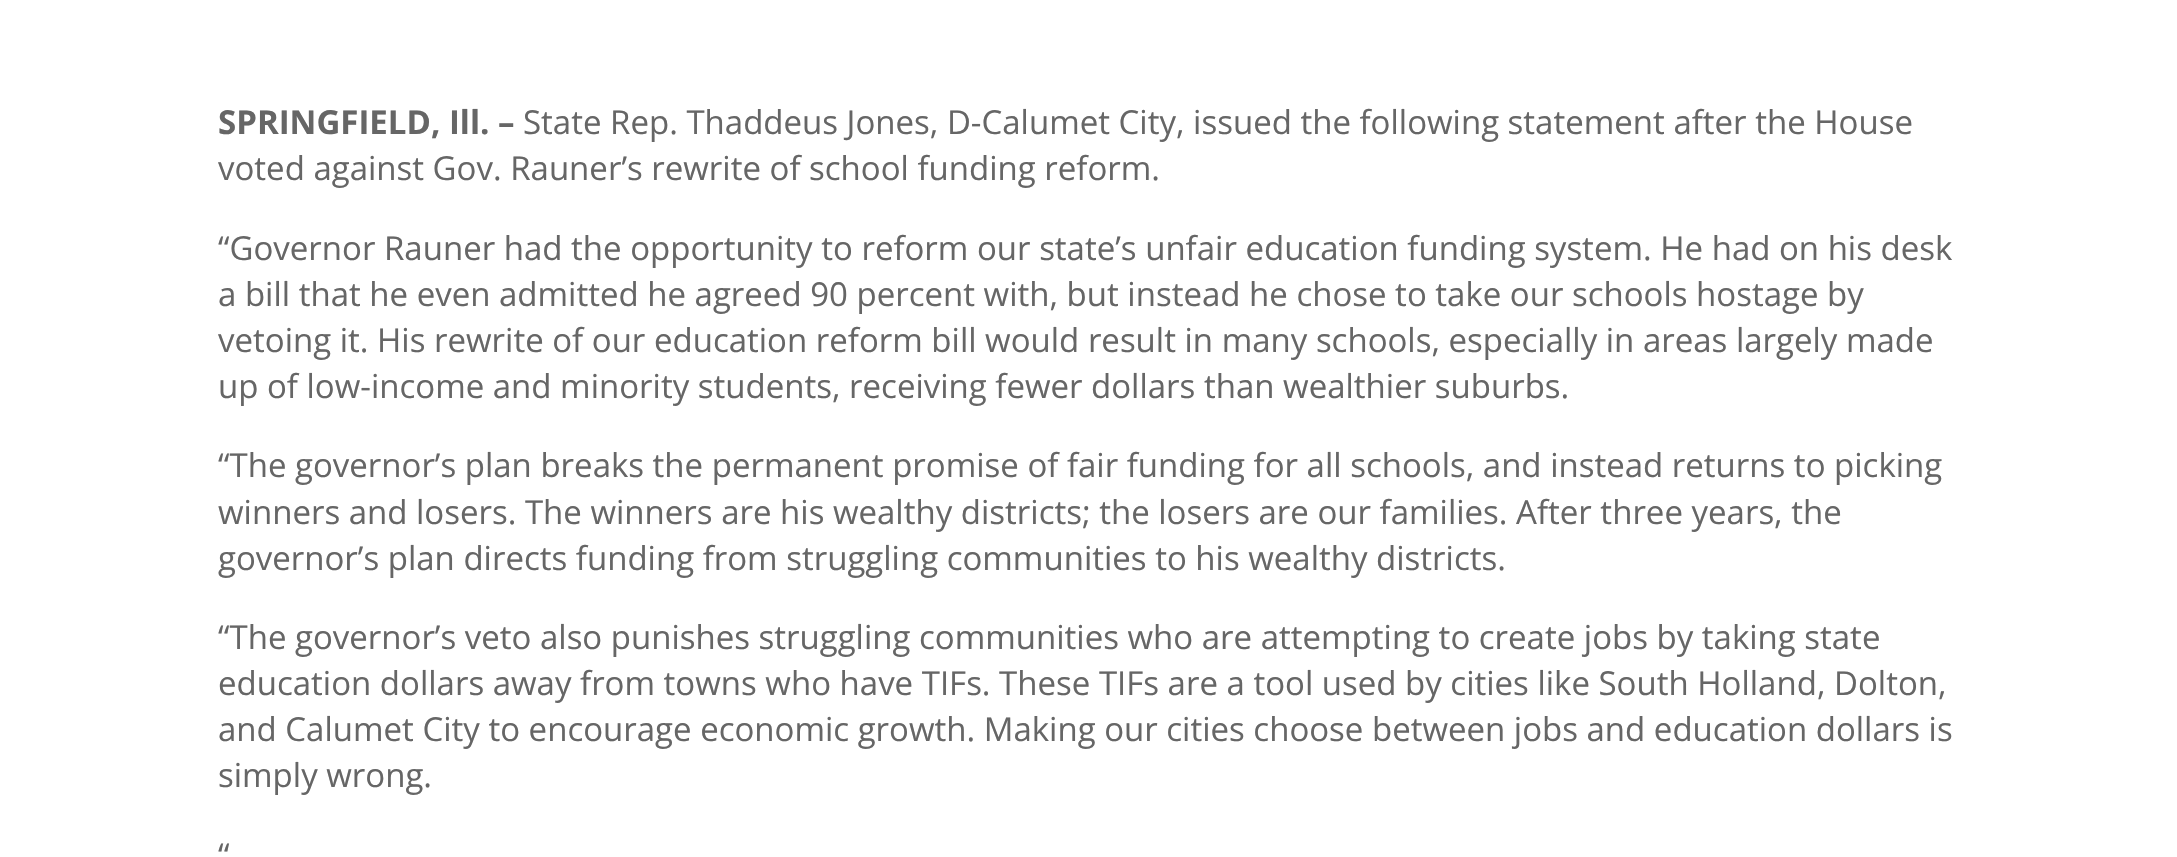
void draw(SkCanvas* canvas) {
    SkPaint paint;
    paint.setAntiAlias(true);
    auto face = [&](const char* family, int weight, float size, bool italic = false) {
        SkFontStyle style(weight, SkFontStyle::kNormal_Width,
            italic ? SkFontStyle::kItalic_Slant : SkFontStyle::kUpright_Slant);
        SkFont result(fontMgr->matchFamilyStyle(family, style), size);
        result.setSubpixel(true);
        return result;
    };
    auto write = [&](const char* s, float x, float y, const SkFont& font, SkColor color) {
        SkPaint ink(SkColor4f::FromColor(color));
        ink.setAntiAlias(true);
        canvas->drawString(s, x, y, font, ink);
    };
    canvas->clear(SK_ColorWHITE);
    auto kFont1 = face("Open Sans", 700, 33);
    write("SPRINGFIELD, Ill. –", 218, 134, kFont1, SkColorSetRGB(102, 102, 102));
    auto kFont2 = face("Open Sans", 400, 33);
    write("State Rep. Thaddeus Jones, D-Calumet City, issued the following statement after the House", 523, 134, kFont2, SkColorSetRGB(102, 102, 102));
    write("voted against Gov. Rauner’s rewrite of school funding reform.", 218, 180, kFont2, SkColorSetRGB(102, 102, 102));
    write("“Governor Rauner had the opportunity to reform our state’s unfair education funding system. He had on his desk", 218, 260, kFont2, SkColorSetRGB(102, 102, 102));
    write("a bill that he even admitted he agreed 90 percent with, but instead he chose to take our schools hostage by", 218, 306, kFont2, SkColorSetRGB(102, 102, 102));
    write("vetoing it. His rewrite of our education reform bill would result in many schools, especially in areas largely made", 218, 352, kFont2, SkColorSetRGB(102, 102, 102));
    write("up of low-income and minority students, receiving fewer dollars than wealthier suburbs.", 218, 398, kFont2, SkColorSetRGB(102, 102, 102));
    write("“The governor’s plan breaks the permanent promise of fair funding for all schools, and instead returns to picking", 218, 477, kFont2, SkColorSetRGB(102, 102, 102));
    write("winners and losers. The winners are his wealthy districts; the losers are our families. After three years, the", 218, 524, kFont2, SkColorSetRGB(102, 102, 102));
    write("governor’s plan directs funding from struggling communities to his wealthy districts.", 218, 570, kFont2, SkColorSetRGB(102, 102, 102));
    write("“The governor’s veto also punishes struggling communities who are attempting to create jobs by taking state", 218, 649, kFont2, SkColorSetRGB(102, 102, 102));
    write("education dollars away from towns who have TIFs. These TIFs are a tool used by cities like South Holland, Dolton,", 218, 695, kFont2, SkColorSetRGB(102, 102, 102));
    write("and Calumet City to encourage economic growth. Making our cities choose between jobs and education dollars is", 218, 741, kFont2, SkColorSetRGB(102, 102, 102));
    write("simply wrong.", 218, 787, kFont2, SkColorSetRGB(102, 102, 102));
    write("“", 218, 867, kFont2, SkColorSetRGB(102, 102, 102));
}
